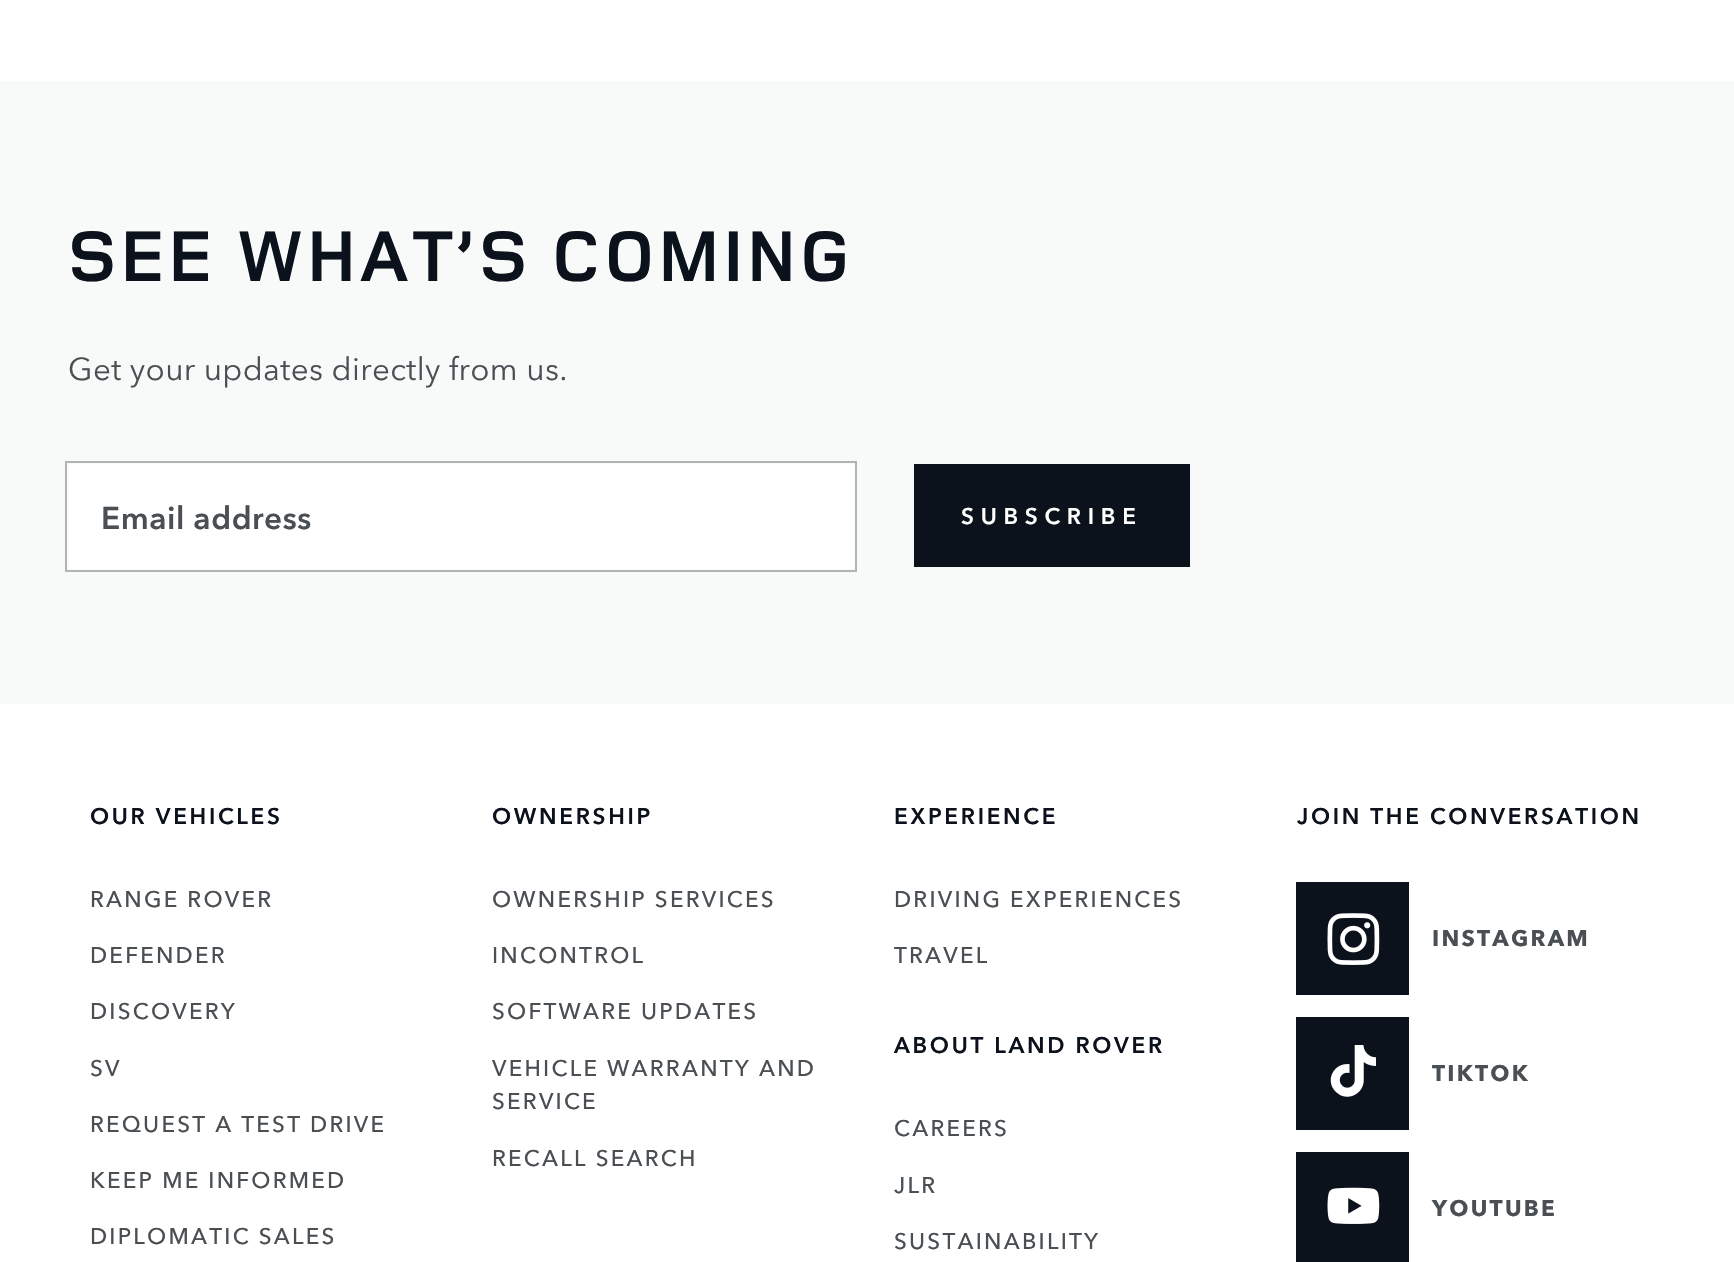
void draw(SkCanvas* canvas) {
    SkPaint paint;
    paint.setAntiAlias(true);
    auto face = [&](const char* family, int weight, float size, bool italic = false) {
        SkFontStyle style(weight, SkFontStyle::kNormal_Width,
            italic ? SkFontStyle::kItalic_Slant : SkFontStyle::kUpright_Slant);
        SkFont result(fontMgr->matchFamilyStyle(family, style), size);
        result.setSubpixel(true);
        return result;
    };
    auto writeSpaced = [&](const char* s, float x, float y, const SkFont& font, const SkPaint& ink, float letter, float word) {
        std::vector<SkGlyphID> glyphs(font.countText(s, strlen(s), SkTextEncoding::kUTF8));
        std::vector<float> xs(glyphs.size());
        font.textToGlyphs(s, strlen(s), SkTextEncoding::kUTF8, glyphs);
        font.getXPos(glyphs, xs, x);
        float extra = 0;
        for (size_t i = 0; i < glyphs.size(); i++) {
            xs[i] += extra;
            extra += letter + word * (glyphs[i] == font.unicharToGlyph(' '));
        }
        canvas->drawTextBlob(SkTextBlob::MakeFromPosHGlyphs(glyphs, xs, y, font), 0, 0, ink);
    };
    auto block = [&](float x, float y, float w, float h, SkColor color) {
        SkPaint ink(SkColor4f::FromColor(color));
        ink.setAntiAlias(true);
        canvas->drawRect(SkRect::MakeXYWH(x, y, w, h), ink);
    };
    auto paste = [&](const char* path, float x, float y, float w, float h) {
        auto image = SkImages::DeferredFromEncodedData(SkData::MakeFromFileName(path));
        canvas->drawImageRect(image, SkRect::MakeXYWH(x, y, w, h), SkSamplingOptions());
    };
    canvas->clear(SK_ColorWHITE);
    block(0, 81, 1734, 623, SkColorSetRGB(248, 249, 249));
    auto kFont1 = face("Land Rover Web", 700, 74.25f);
    paint.setColor(SkColorSetRGB(12, 18, 28));
    writeSpaced("SEE WHAT’S COMING", 68, 281, kFont1, paint, 3.75f, 0);
    auto kFont2 = face("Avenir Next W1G", 400, 31.5f);
    paint.setColor(SkColorSetRGB(74, 79, 84));
    writeSpaced("Get your updates directly from us.", 68, 380, kFont2, paint, 0.35f, 0);
    block(68, 464, 787, 105, SK_ColorWHITE);
    paint.setStyle(SkPaint::kStroke_Style);
    paint.setStrokeWidth(2);
    paint.setColor(SkColorSetRGB(177, 180, 183));
    canvas->drawRect(SkRect::MakeXYWH(66, 462, 790, 109), paint);
    auto kFont3 = face("Avenir Next W1G", 600, 31.5f);
    paint.setStyle(SkPaint::kFill_Style);
    paint.setColor(SkColorSetRGB(74, 79, 84));
    writeSpaced("Email address", 101, 529, kFont3, paint, 0.5f, 0);
    block(914, 464, 276, 103, SkColorSetRGB(12, 18, 28));
    auto kFont4 = face("Avenir Next W1G", 600, 22.5f);
    paint.setColor(SK_ColorWHITE);
    writeSpaced("SUBSCRIBE", 961, 524, kFont4, paint, 6.75f, 0);
    paint.setColor(SkColorSetRGB(12, 18, 28));
    writeSpaced("OUR VEHICLES", 90, 824, kFont4, paint, 2.7f, 0);
    auto kFont5 = face("Avenir Next W1G", 500, 22.5f);
    paint.setColor(SkColorSetRGB(74, 79, 84));
    writeSpaced("RANGE ROVER", 90, 907, kFont5, paint, 2.25f, 0);
    writeSpaced("DEFENDER", 90, 963, kFont5, paint, 2.25f, 0);
    writeSpaced("DISCOVERY", 90, 1019, kFont5, paint, 2.25f, 0);
    writeSpaced("SV", 90, 1076, kFont5, paint, 2.25f, 0);
    writeSpaced("REQUEST A TEST DRIVE", 90, 1132, kFont5, paint, 2.25f, 0);
    writeSpaced("KEEP ME INFORMED", 90, 1188, kFont5, paint, 2.25f, 0);
    writeSpaced("DIPLOMATIC SALES", 90, 1244, kFont5, paint, 2.25f, 0);
    paint.setColor(SkColorSetRGB(12, 18, 28));
    writeSpaced("OWNERSHIP", 492, 824, kFont4, paint, 2.7f, 0);
    paint.setColor(SkColorSetRGB(74, 79, 84));
    writeSpaced("OWNERSHIP SERVICES", 492, 907, kFont5, paint, 2.25f, 0);
    writeSpaced("INCONTROL", 492, 963, kFont5, paint, 2.25f, 0);
    writeSpaced("SOFTWARE UPDATES", 492, 1019, kFont5, paint, 2.25f, 0);
    writeSpaced("VEHICLE WARRANTY AND", 492, 1076, kFont5, paint, 2.25f, 0);
    writeSpaced("SERVICE", 492, 1109, kFont5, paint, 2.25f, 0);
    writeSpaced("RECALL SEARCH", 492, 1166, kFont5, paint, 2.25f, 0);
    paint.setColor(SkColorSetRGB(12, 18, 28));
    writeSpaced("EXPERIENCE", 894, 824, kFont4, paint, 2.7f, 0);
    paint.setColor(SkColorSetRGB(74, 79, 84));
    writeSpaced("DRIVING EXPERIENCES", 894, 907, kFont5, paint, 2.25f, 0);
    writeSpaced("TRAVEL", 894, 963, kFont5, paint, 2.25f, 0);
    paint.setColor(SkColorSetRGB(12, 18, 28));
    writeSpaced("ABOUT LAND ROVER", 894, 1053, kFont4, paint, 2.7f, 0);
    paint.setColor(SkColorSetRGB(74, 79, 84));
    writeSpaced("CAREERS", 894, 1136, kFont5, paint, 2.25f, 0);
    writeSpaced("JLR", 894, 1193, kFont5, paint, 2.25f, 0);
    writeSpaced("SUSTAINABILITY", 894, 1249, kFont5, paint, 2.25f, 0);
    paint.setColor(SkColorSetRGB(12, 18, 28));
    writeSpaced("JOIN THE CONVERSATION", 1297, 824, kFont4, paint, 2.7f, 0);
    block(1296, 882, 113, 113, SkColorSetRGB(12, 18, 28));
    paste("pic1.png", 1327, 913, 53, 52);
    auto kFont6 = face("Avenir Next W1G", 700, 22.5f);
    paint.setColor(SkColorSetRGB(74, 79, 84));
    writeSpaced("INSTAGRAM", 1432, 946, kFont6, paint, 2.25f, 0);
    block(1296, 1017, 113, 113, SkColorSetRGB(12, 18, 28));
    paste("pic2.png", 1330, 1045, 46, 52);
    writeSpaced("TIKTOK", 1432, 1081, kFont6, paint, 2.25f, 0);
    block(1296, 1152, 113, 110, SkColorSetRGB(12, 18, 28));
    paste("pic3.png", 1327, 1187, 53, 37);
    writeSpaced("YOUTUBE", 1432, 1216, kFont6, paint, 2.25f, 0);
}
